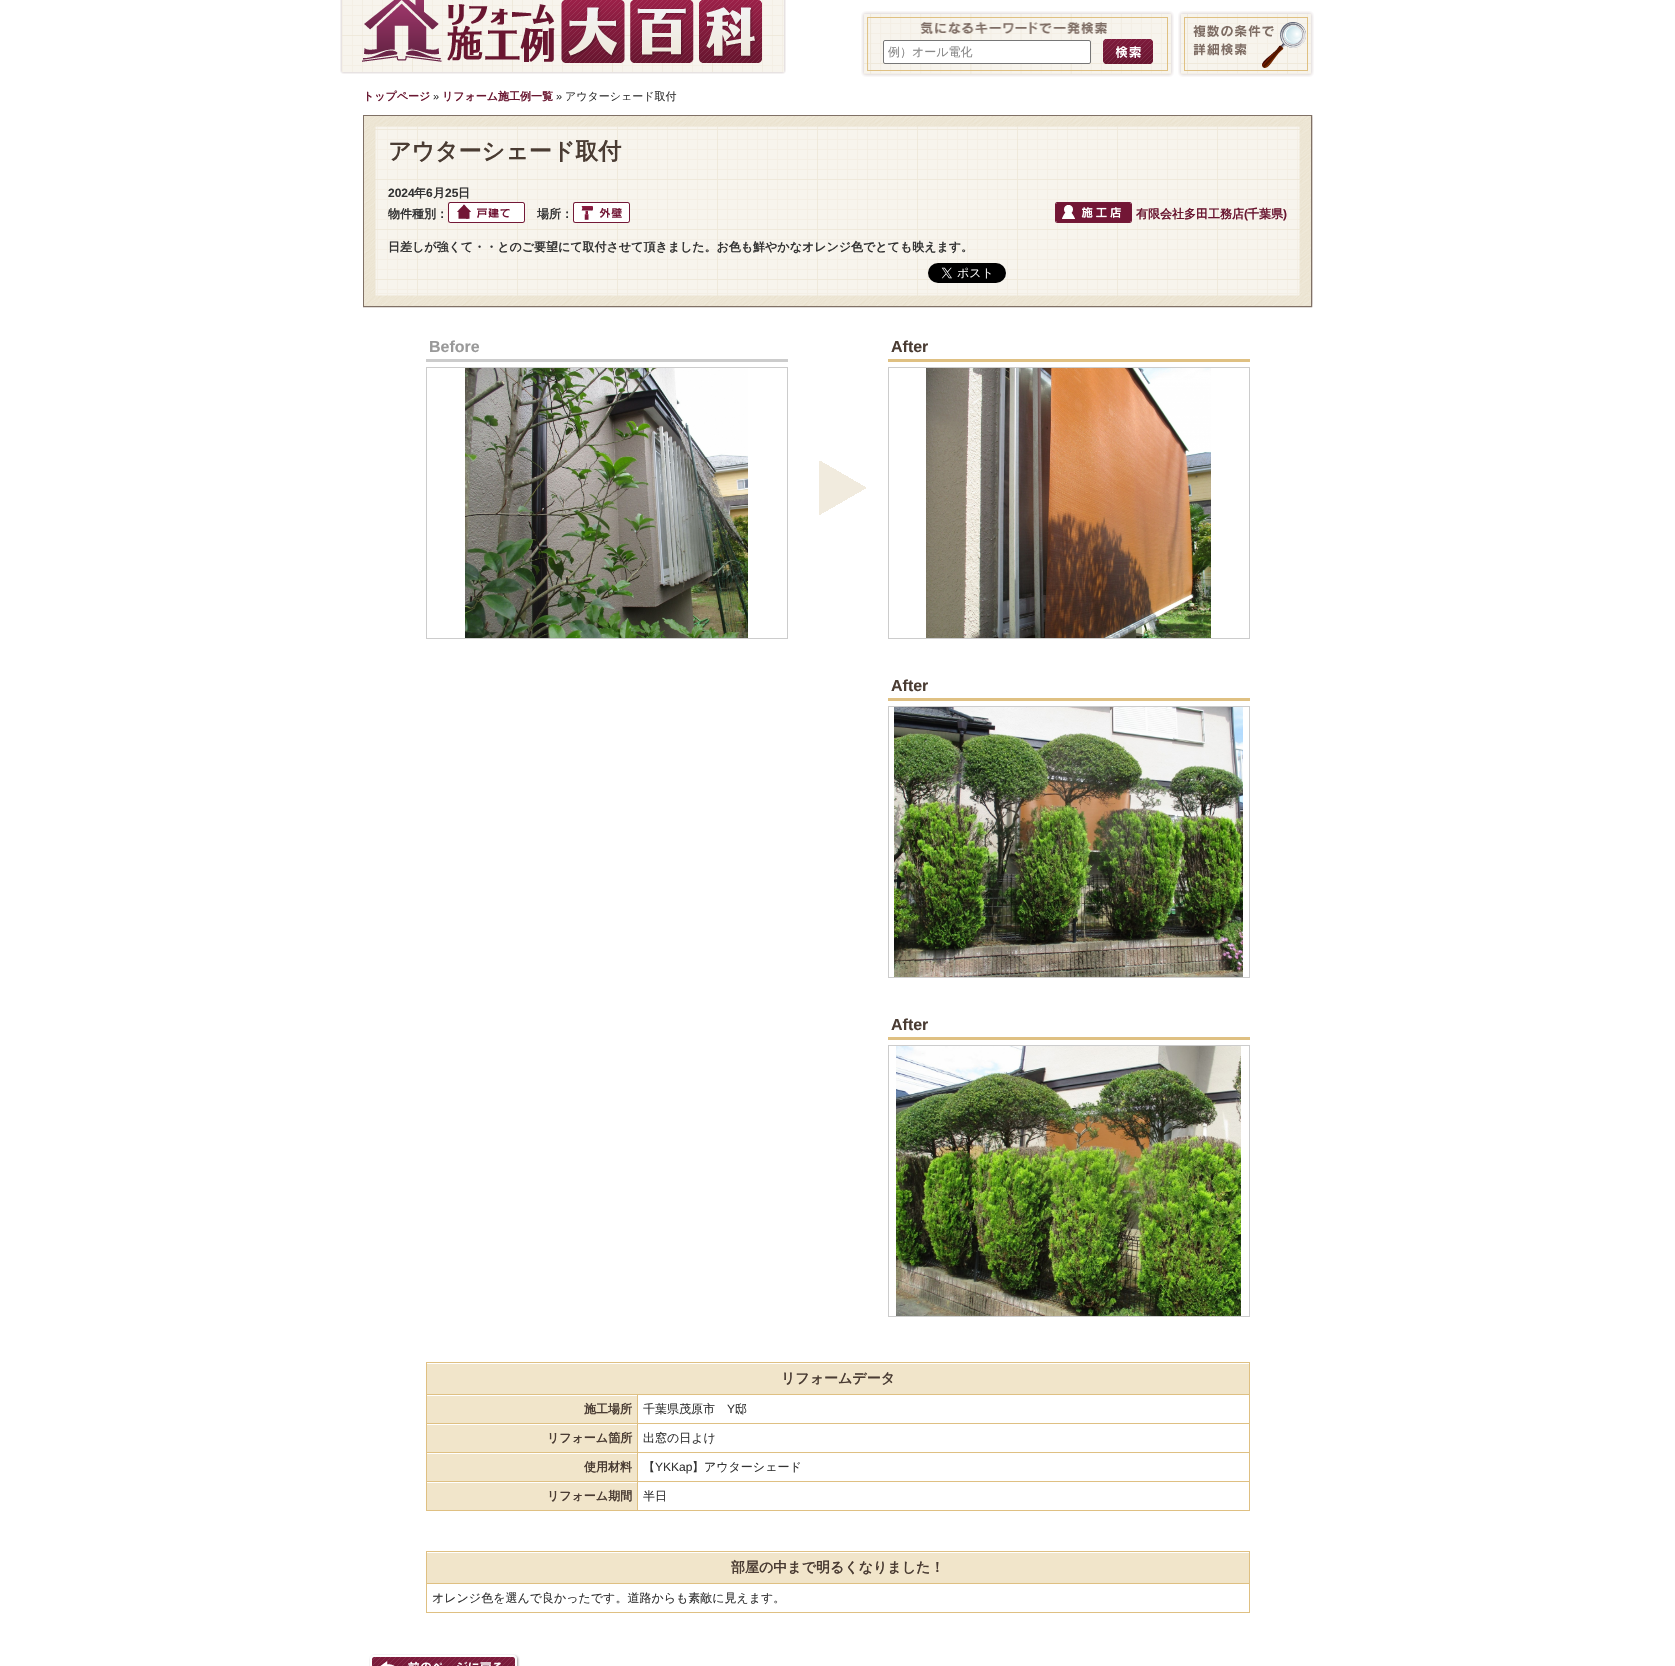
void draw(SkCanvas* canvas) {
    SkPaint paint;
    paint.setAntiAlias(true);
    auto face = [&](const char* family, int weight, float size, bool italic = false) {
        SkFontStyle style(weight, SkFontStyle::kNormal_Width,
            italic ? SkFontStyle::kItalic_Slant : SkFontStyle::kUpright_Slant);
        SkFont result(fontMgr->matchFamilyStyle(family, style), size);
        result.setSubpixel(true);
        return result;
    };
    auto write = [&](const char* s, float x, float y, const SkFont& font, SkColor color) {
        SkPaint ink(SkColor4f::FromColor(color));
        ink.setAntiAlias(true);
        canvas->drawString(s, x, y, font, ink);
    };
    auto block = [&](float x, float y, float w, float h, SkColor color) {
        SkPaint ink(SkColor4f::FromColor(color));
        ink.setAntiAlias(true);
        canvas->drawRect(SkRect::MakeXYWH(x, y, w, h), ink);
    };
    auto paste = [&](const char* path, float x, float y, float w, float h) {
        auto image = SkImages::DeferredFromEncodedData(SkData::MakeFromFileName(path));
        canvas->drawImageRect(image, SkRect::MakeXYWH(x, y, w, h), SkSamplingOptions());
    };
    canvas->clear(SK_ColorWHITE);
    paste("pic1.png", 340, 0, 446, 74);
    paste("pic2.png", 861, 11, 313, 66);
    paint.setColor(SK_ColorWHITE);
    canvas->drawRoundRect(SkRect::MakeXYWH(883.5f, 40.5f, 207, 23), 1.5f, 1.5f, paint);
    paint.setStyle(SkPaint::kStroke_Style);
    paint.setStrokeWidth(1);
    paint.setColor(SkColorSetRGB(118, 118, 118));
    canvas->drawRoundRect(SkRect::MakeXYWH(883.5f, 40.5f, 207, 23), 1.5f, 1.5f, paint);
    paste("pic3.png", 1103, 39, 50, 25);
    auto kFont1 = face("WenQuanYi Zen Hei", 500, 12);
    write("例）オール電化", 888, 56, kFont1, SkColorSetRGB(136, 136, 136));
    paste("pic4.png", 1178, 11, 136, 66);
    auto kFont2 = face("WenQuanYi Zen Hei", 700, 11);
    write("トップページ", 363, 100, kFont2, SkColorSetRGB(105, 22, 48));
    auto kFont3 = face("Liberation Sans", 400, 11);
    write("»", 433, 100, kFont3, SkColorSetRGB(51, 51, 51));
    write("リフォーム施工例一覧", 442, 100, kFont2, SkColorSetRGB(105, 22, 48));
    write("»", 556, 100, kFont3, SkColorSetRGB(51, 51, 51));
    auto kFont4 = face("WenQuanYi Zen Hei", 500, 11);
    write("アウターシェード取付", 565, 100, kFont4, SkColorSetRGB(51, 51, 51));
    paste("pic5.png", 363, 115, 950, 14);
    paste("pic6.png", 363, 129, 950, 164);
    auto kFont5 = face("WenQuanYi Zen Hei", 700, 23);
    write("アウターシェード取付", 388, 159, kFont5, SkColorSetRGB(74, 60, 51));
    auto kFont6 = face("Liberation Sans", 700, 12);
    write("2024", 388, 197, kFont6, SkColorSetRGB(51, 51, 51));
    auto kFont7 = face("WenQuanYi Zen Hei", 700, 12);
    write("年", 414, 197, kFont7, SkColorSetRGB(51, 51, 51));
    write("6", 426, 197, kFont6, SkColorSetRGB(51, 51, 51));
    write("月", 433, 197, kFont7, SkColorSetRGB(51, 51, 51));
    write("25", 445, 197, kFont6, SkColorSetRGB(51, 51, 51));
    write("日", 458, 197, kFont7, SkColorSetRGB(51, 51, 51));
    write("物件種別：", 388, 218, kFont7, SkColorSetRGB(51, 51, 51));
    paste("pic7.png", 448, 202, 77, 21);
    write("場所：", 537, 218, kFont7, SkColorSetRGB(51, 51, 51));
    paste("pic8.png", 573, 202, 57, 21);
    paste("pic9.png", 1055, 202, 77, 21);
    write("有限会社多田工務店", 1136, 218, kFont7, SkColorSetRGB(105, 22, 48));
    write("(", 1244, 218, kFont6, SkColorSetRGB(105, 22, 48));
    write("千葉県", 1247, 218, kFont7, SkColorSetRGB(105, 22, 48));
    write(")", 1283, 218, kFont6, SkColorSetRGB(105, 22, 48));
    write("日差しが強くて・・とのご要望にて取付させて頂きました。お色も鮮やかなオレンジ色でとても映えます。", 388, 251, kFont7, SkColorSetRGB(51, 51, 51));
    paste("pic10.png", 928, 263, 78, 20);
    paste("pic11.png", 363, 293, 950, 15);
    block(426, 359, 362, 3, SkColorSetRGB(204, 204, 204));
    auto kFont8 = face("Liberation Sans", 700, 16);
    write("Before", 429, 352, kFont8, SkColorSetRGB(153, 153, 153));
    paint.setColor(SkColorSetRGB(204, 204, 204));
    canvas->drawRect(SkRect::MakeXYWH(426.5f, 367.5f, 361, 271), paint);
    paste("pic12.png", 465, 368, 283, 270);
    block(888, 359, 362, 3, SkColorSetRGB(223, 192, 130));
    write("After", 891, 352, kFont8, SkColorSetRGB(74, 60, 51));
    canvas->drawRect(SkRect::MakeXYWH(888.5f, 367.5f, 361, 271), paint);
    paste("pic13.png", 926, 368, 285, 270);
    paste("pic14.png", 819, 461, 47, 54);
    block(888, 698, 362, 3, SkColorSetRGB(223, 192, 130));
    write("After", 891, 691, kFont8, SkColorSetRGB(74, 60, 51));
    canvas->drawRect(SkRect::MakeXYWH(888.5f, 706.5f, 361, 271), paint);
    paste("pic15.png", 894, 707, 349, 270);
    block(888, 1037, 362, 3, SkColorSetRGB(223, 192, 130));
    write("After", 891, 1030, kFont8, SkColorSetRGB(74, 60, 51));
    canvas->drawRect(SkRect::MakeXYWH(888.5f, 1045.5f, 361, 271), paint);
    paste("pic16.png", 896, 1046, 345, 270);
    block(427, 1364, 822, 30, SkColorSetRGB(241, 229, 202));
    block(426, 1362, 824, 1, SkColorSetRGB(223, 192, 130));
    block(637, 1394, 613, 1, SkColorSetRGB(223, 192, 130));
    block(637, 1423, 613, 1, SkColorSetRGB(223, 192, 130));
    block(637, 1452, 613, 1, SkColorSetRGB(223, 192, 130));
    block(637, 1481, 613, 1, SkColorSetRGB(223, 192, 130));
    block(1249, 1481, 1, 30, SkColorSetRGB(223, 192, 130));
    block(1249, 1452, 1, 30, SkColorSetRGB(223, 192, 130));
    block(1249, 1423, 1, 30, SkColorSetRGB(223, 192, 130));
    block(1249, 1394, 1, 30, SkColorSetRGB(223, 192, 130));
    block(1249, 1362, 1, 33, SkColorSetRGB(223, 192, 130));
    block(637, 1510, 613, 1, SkColorSetRGB(223, 192, 130));
    block(637, 1481, 1, 30, SkColorSetRGB(223, 192, 130));
    block(426, 1481, 212, 1, SkColorSetRGB(223, 192, 130));
    block(637, 1452, 1, 30, SkColorSetRGB(223, 192, 130));
    block(426, 1452, 212, 1, SkColorSetRGB(223, 192, 130));
    block(637, 1423, 1, 30, SkColorSetRGB(223, 192, 130));
    block(426, 1423, 212, 1, SkColorSetRGB(223, 192, 130));
    block(637, 1394, 1, 30, SkColorSetRGB(223, 192, 130));
    block(426, 1394, 212, 1, SkColorSetRGB(223, 192, 130));
    block(426, 1510, 212, 1, SkColorSetRGB(223, 192, 130));
    block(426, 1481, 1, 30, SkColorSetRGB(223, 192, 130));
    block(426, 1452, 1, 30, SkColorSetRGB(223, 192, 130));
    block(426, 1423, 1, 30, SkColorSetRGB(223, 192, 130));
    block(426, 1394, 1, 30, SkColorSetRGB(223, 192, 130));
    block(426, 1362, 1, 33, SkColorSetRGB(223, 192, 130));
    auto kFont9 = face("WenQuanYi Zen Hei", 700, 14);
    write("リフォームデータ", 781, 1383, kFont9, SkColorSetRGB(74, 60, 51));
    block(427, 1396, 210, 27, SkColorSetRGB(241, 229, 202));
    write("施工場所", 584, 1413, kFont7, SkColorSetRGB(74, 60, 51));
    write("千葉県茂原市", 643, 1413, kFont1, SkColorSetRGB(51, 51, 51));
    auto kFont10 = face("Liberation Sans", 400, 12);
    write("Y", 727, 1413, kFont10, SkColorSetRGB(51, 51, 51));
    write("邸", 735, 1413, kFont1, SkColorSetRGB(51, 51, 51));
    block(427, 1425, 210, 27, SkColorSetRGB(241, 229, 202));
    write("リフォーム箇所", 547, 1442, kFont7, SkColorSetRGB(74, 60, 51));
    write("出窓の日よけ", 643, 1442, kFont1, SkColorSetRGB(51, 51, 51));
    block(427, 1454, 210, 27, SkColorSetRGB(241, 229, 202));
    write("使用材料", 584, 1471, kFont7, SkColorSetRGB(74, 60, 51));
    write("【", 643, 1471, kFont1, SkColorSetRGB(51, 51, 51));
    write("YKKap", 655, 1471, kFont10, SkColorSetRGB(51, 51, 51));
    write("】アウターシェード", 692, 1471, kFont1, SkColorSetRGB(51, 51, 51));
    block(427, 1483, 210, 27, SkColorSetRGB(241, 229, 202));
    write("リフォーム期間", 547, 1500, kFont7, SkColorSetRGB(74, 60, 51));
    write("半日", 643, 1500, kFont1, SkColorSetRGB(51, 51, 51));
    block(427, 1553, 822, 30, SkColorSetRGB(241, 229, 202));
    block(426, 1551, 824, 1, SkColorSetRGB(223, 192, 130));
    block(426, 1583, 824, 1, SkColorSetRGB(223, 192, 130));
    block(1249, 1583, 1, 30, SkColorSetRGB(223, 192, 130));
    block(1249, 1551, 1, 33, SkColorSetRGB(223, 192, 130));
    block(426, 1612, 824, 1, SkColorSetRGB(223, 192, 130));
    block(426, 1583, 1, 30, SkColorSetRGB(223, 192, 130));
    block(426, 1551, 1, 33, SkColorSetRGB(223, 192, 130));
    write("部屋の中まで明るくなりました！", 731, 1572, kFont9, SkColorSetRGB(74, 60, 51));
    write("オレンジ色を選んで良かったです。道路からも素敵に見えます。", 432, 1602, kFont1, SkColorSetRGB(51, 51, 51));
    paste("pic17.png", 369, 1654, 151, 12);
}
